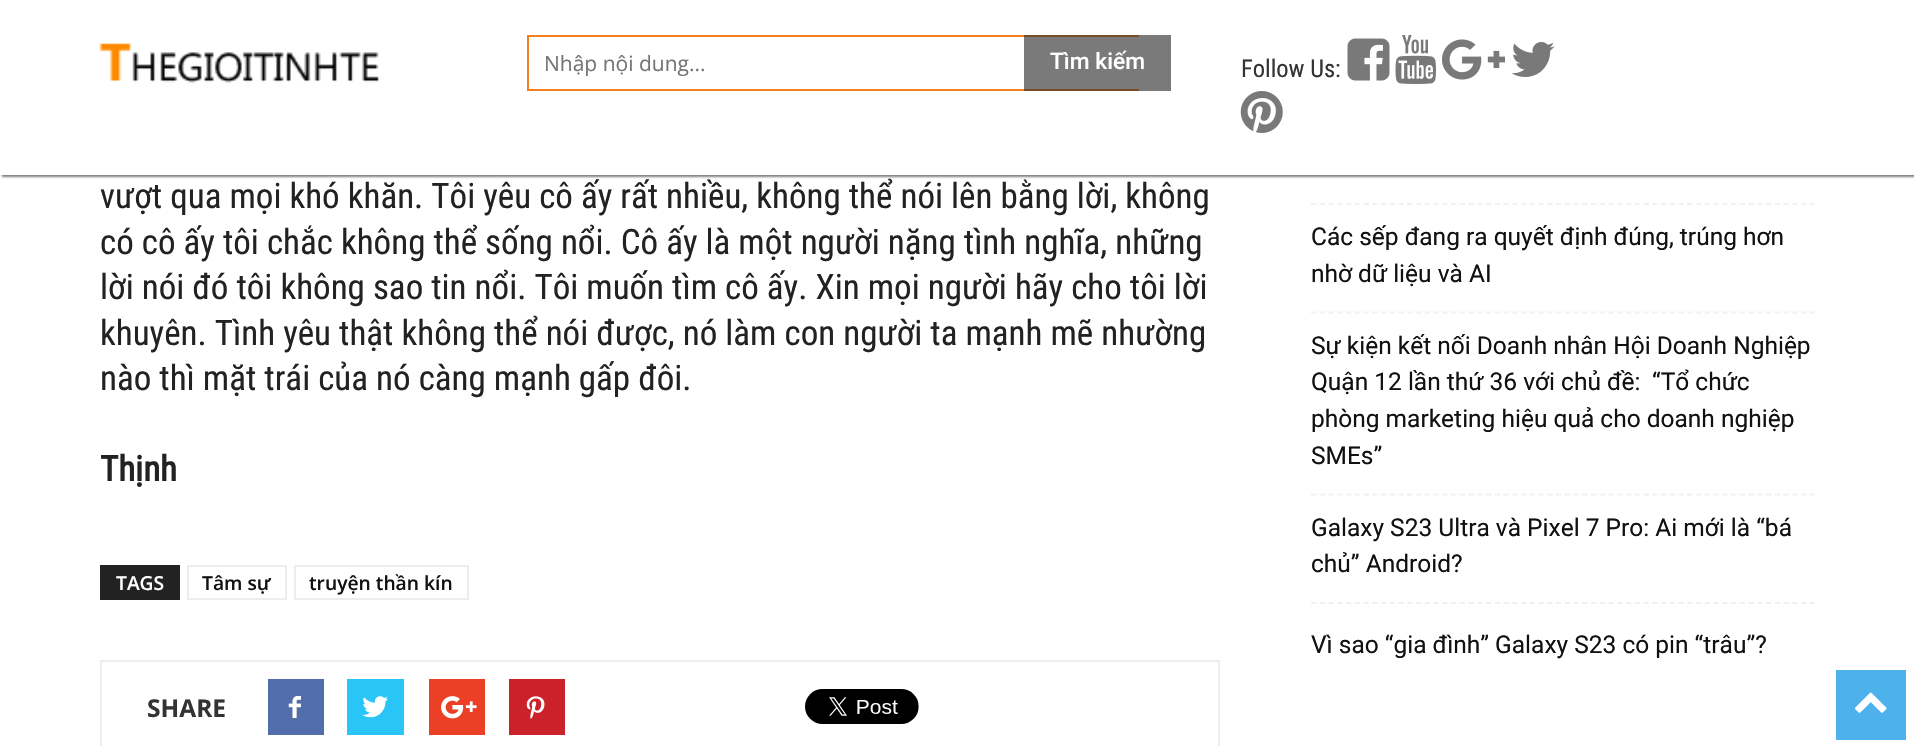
void draw(SkCanvas* canvas) {
    SkPaint paint;
    paint.setAntiAlias(true);
    auto face = [&](const char* family, int weight, float size, bool italic = false) {
        SkFontStyle style(weight, SkFontStyle::kNormal_Width,
            italic ? SkFontStyle::kItalic_Slant : SkFontStyle::kUpright_Slant);
        SkFont result(fontMgr->matchFamilyStyle(family, style), size);
        result.setSubpixel(true);
        return result;
    };
    auto write = [&](const char* s, float x, float y, const SkFont& font, SkColor color) {
        SkPaint ink(SkColor4f::FromColor(color));
        ink.setAntiAlias(true);
        canvas->drawString(s, x, y, font, ink);
    };
    auto block = [&](float x, float y, float w, float h, SkColor color) {
        SkPaint ink(SkColor4f::FromColor(color));
        ink.setAntiAlias(true);
        canvas->drawRect(SkRect::MakeXYWH(x, y, w, h), ink);
    };
    auto paste = [&](const char* path, float x, float y, float w, float h) {
        auto image = SkImages::DeferredFromEncodedData(SkData::MakeFromFileName(path));
        canvas->drawImageRect(image, SkRect::MakeXYWH(x, y, w, h), SkSamplingOptions());
    };
    canvas->clear(SK_ColorWHITE);
    paint.setColor(SkColorSetRGB(128, 128, 128));
    paint.setMaskFilter(SkMaskFilter::MakeBlur(kNormal_SkBlurStyle, 1));
    canvas->drawRect(SkRect::MakeXYWH(2, 2, 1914, 175), paint);
    paint.setMaskFilter(nullptr);
    block(0, 0, 1914, 175, SK_ColorWHITE);
    paste("pic1.png", 99, 43, 281, 40);
    block(527, 35, 612, 2, SkColorSetRGB(245, 129, 30));
    block(527, 89, 612, 2, SkColorSetRGB(245, 129, 30));
    block(527, 35, 2, 56, SkColorSetRGB(245, 129, 30));
    auto kFont1 = face("Open Sans", 400, 21);
    write("Nhập nội dung...", 544, 71, kFont1, SkColorSetRGB(117, 117, 117));
    block(1024, 35, 147, 56, SkColorSetARGB(161, 45, 44, 44));
    auto kFont2 = face("Roboto", 500, 22.75f);
    write("Tìm kiếm", 1050, 69, kFont2, SK_ColorWHITE);
    auto kFont3 = face("Roboto Condensed", 400, 24.5f);
    write("Follow Us:", 1241, 77, kFont3, SkColorSetRGB(51, 51, 51));
    paste("pic2.png", 1347, 38, 43, 43);
    paste("pic3.png", 1395, 35, 41, 49);
    paste("pic4.png", 1442, 39, 63, 41);
    paste("pic5.png", 1511, 42, 44, 35);
    paste("pic6.png", 1240, 91, 43, 42);
    auto kFont4 = face("Roboto Condensed", 400, 35);
    write("vượt qua mọi khó khăn. Tôi yêu cô ấy rất nhiều, không thể nói lên bằng lời, không", 100, 208, kFont4, SkColorSetRGB(34, 34, 34));
    write("có cô ấy tôi chắc không thể sống nổi. Cô ấy là một người nặng tình nghĩa, những", 100, 254, kFont4, SkColorSetRGB(34, 34, 34));
    write("lời nói đó tôi không sao tin nổi. Tôi muốn tìm cô ấy. Xin mọi người hãy cho tôi lời", 100, 299, kFont4, SkColorSetRGB(34, 34, 34));
    write("khuyên. Tình yêu thật không thể nói được, nó làm con người ta mạnh mẽ nhường", 100, 345, kFont4, SkColorSetRGB(34, 34, 34));
    write("nào thì mặt trái của nó càng mạnh gấp đôi.", 100, 390, kFont4, SkColorSetRGB(34, 34, 34));
    auto kFont5 = face("Roboto Condensed", 700, 35);
    write("Thịnh", 100, 481, kFont5, SkColorSetRGB(34, 34, 34));
    block(100, 565, 80, 35, SkColorSetRGB(34, 34, 34));
    auto kFont6 = face("Open Sans", 600, 19.25f);
    write("TAGS", 116, 590, kFont6, SK_ColorWHITE);
    paint.setStyle(SkPaint::kStroke_Style);
    paint.setStrokeWidth(2);
    paint.setColor(SkColorSetRGB(237, 237, 237));
    canvas->drawRect(SkRect::MakeXYWH(188, 566, 98, 33), paint);
    write("Tâm sự", 202, 590, kFont6, SkColorSetRGB(17, 17, 17));
    canvas->drawRect(SkRect::MakeXYWH(295, 566, 173, 33), paint);
    write("truyện thần kín", 309, 590, kFont6, SkColorSetRGB(17, 17, 17));
    canvas->drawRect(SkRect::MakeXYWH(101, 661, 1118, 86), paint);
    auto kFont7 = face("Open Sans", 700, 24.5f);
    write("SHARE", 147, 717, kFont7, SkColorSetRGB(51, 51, 51));
    block(268, 679, 56, 56, SkColorSetRGB(81, 110, 171));
    paste("pic7.png", 288, 696, 13, 22);
    block(347, 679, 57, 56, SkColorSetRGB(41, 197, 246));
    paste("pic8.png", 362, 696, 26, 22);
    block(429, 679, 56, 56, SkColorSetRGB(235, 64, 38));
    paste("pic9.png", 441, 696, 36, 23);
    block(509, 679, 56, 56, SkColorSetRGB(202, 33, 42));
    paste("pic10.png", 526, 696, 19, 23);
    paste("pic11.png", 805, 689, 114, 35);
    paint.setStrokeWidth(1.8f);
    paint.setColor(SkColorSetRGB(241, 241, 241));
    paint.setPathEffect(SkDashPathEffect::Make({{5.25f, 3.5f}}, 0));
    canvas->drawPath(SkPathBuilder().moveTo(1311, 204).lineTo(1815, 204).detach(), paint);
    paint.setPathEffect(nullptr);
    paint.setPathEffect(SkDashPathEffect::Make({{5.25f, 3.5f}}, 0));
    canvas->drawPath(SkPathBuilder().moveTo(1311, 312.5f).lineTo(1815, 312.5f).detach(), paint);
    paint.setPathEffect(nullptr);
    auto kFont8 = face("Roboto", 400, 24.5f);
    write("Các sếp đang ra quyết định đúng, trúng hơn", 1311, 245, kFont8, SkColorSetRGB(17, 17, 17));
    write("nhờ dữ liệu và AI", 1311, 282, kFont8, SkColorSetRGB(17, 17, 17));
    paint.setPathEffect(SkDashPathEffect::Make({{5.25f, 3.5f}}, 0));
    canvas->drawPath(SkPathBuilder().moveTo(1311, 494.5f).lineTo(1815, 494.5f).detach(), paint);
    paint.setPathEffect(nullptr);
    write("Sự kiện kết nối Doanh nhân Hội Doanh Nghiệp", 1311, 354, kFont8, SkColorSetRGB(17, 17, 17));
    write("Quận 12 lần thứ 36 với chủ đề:", 1311, 390, kFont8, SkColorSetRGB(17, 17, 17));
    write("“Tổ chức", 1652, 390, kFont8, SkColorSetRGB(17, 17, 17));
    write("phòng marketing hiệu quả cho doanh nghiệp", 1311, 427, kFont8, SkColorSetRGB(17, 17, 17));
    write("SMEs”", 1311, 464, kFont8, SkColorSetRGB(17, 17, 17));
    paint.setPathEffect(SkDashPathEffect::Make({{5.25f, 3.5f}}, 0));
    canvas->drawPath(SkPathBuilder().moveTo(1311, 603).lineTo(1815, 603).detach(), paint);
    paint.setPathEffect(nullptr);
    write("Galaxy S23 Ultra và Pixel 7 Pro: Ai mới là “bá", 1311, 536, kFont8, SkColorSetRGB(17, 17, 17));
    write("chủ” Android?", 1311, 572, kFont8, SkColorSetRGB(17, 17, 17));
    write("Vì sao “gia đình” Galaxy S23 có pin “trâu”?", 1311, 653, kFont8, SkColorSetRGB(17, 17, 17));
    block(1836, 670, 70, 70, SkColorSetRGB(77, 178, 236));
    paste("pic12.png", 1855, 692, 32, 21);
}
